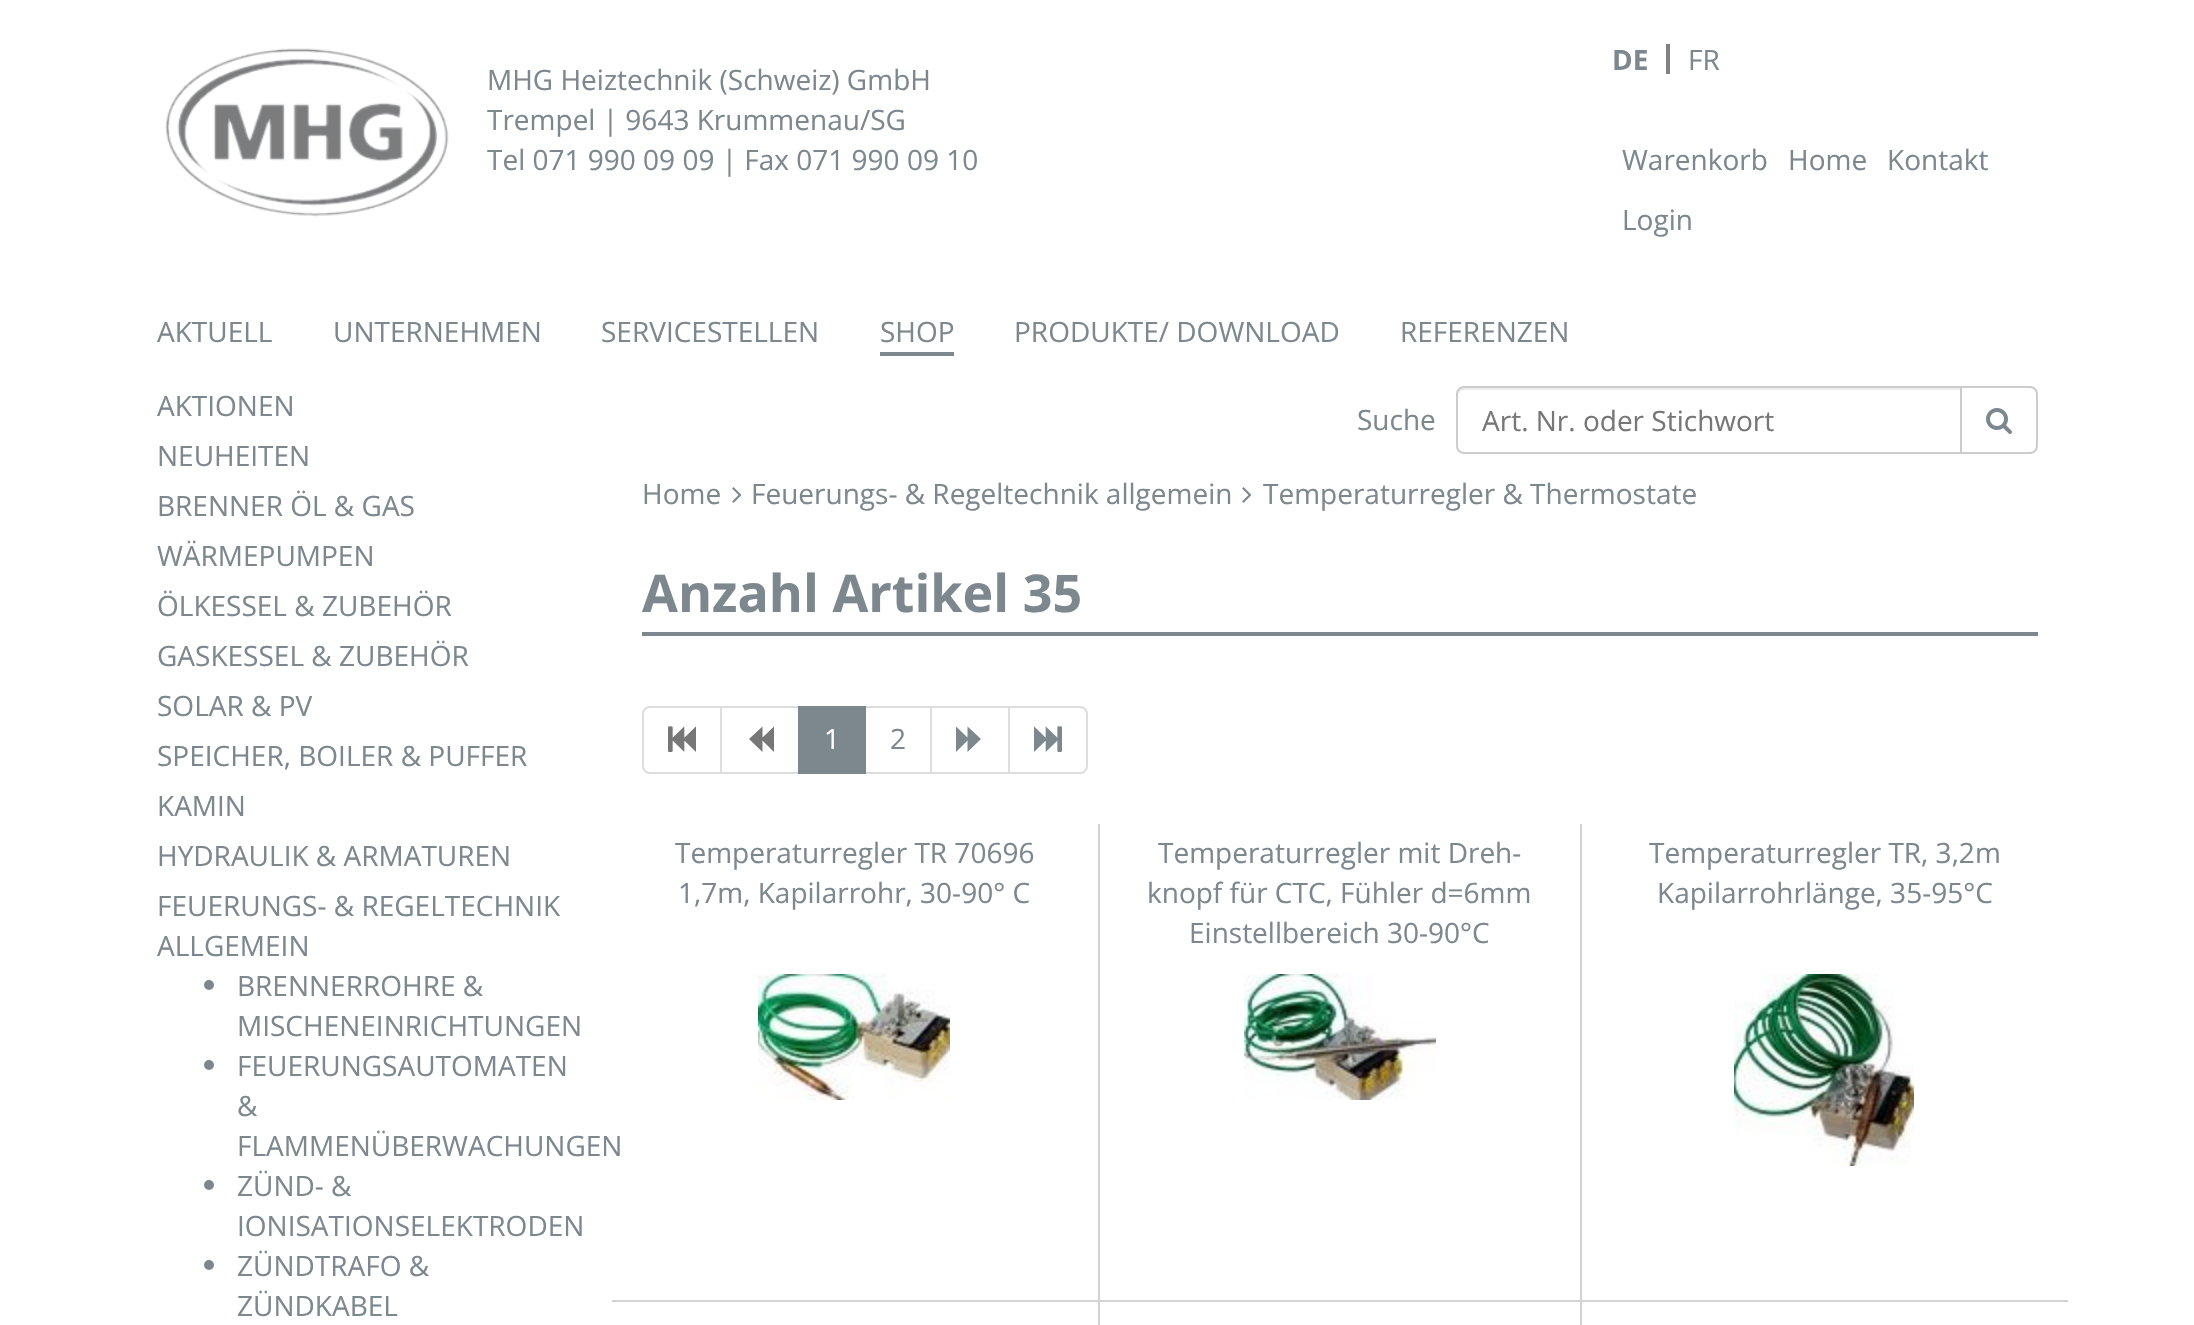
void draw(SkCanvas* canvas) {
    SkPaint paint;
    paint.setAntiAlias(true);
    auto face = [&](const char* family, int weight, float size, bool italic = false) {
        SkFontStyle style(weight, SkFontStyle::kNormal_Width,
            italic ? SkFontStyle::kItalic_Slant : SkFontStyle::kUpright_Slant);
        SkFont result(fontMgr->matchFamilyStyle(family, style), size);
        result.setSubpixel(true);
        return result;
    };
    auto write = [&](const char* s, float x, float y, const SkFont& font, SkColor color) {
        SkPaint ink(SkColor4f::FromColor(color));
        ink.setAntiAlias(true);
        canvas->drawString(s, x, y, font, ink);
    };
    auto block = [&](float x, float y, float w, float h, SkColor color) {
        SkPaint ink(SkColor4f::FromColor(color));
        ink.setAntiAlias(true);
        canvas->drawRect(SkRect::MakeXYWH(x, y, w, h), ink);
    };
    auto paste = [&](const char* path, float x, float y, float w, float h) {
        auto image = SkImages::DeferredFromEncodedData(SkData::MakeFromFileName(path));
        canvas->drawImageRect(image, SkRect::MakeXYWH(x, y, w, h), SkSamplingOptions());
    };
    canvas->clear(SK_ColorWHITE);
    paste("pic1.png", 165, 48, 284, 169);
    auto kFont1 = face("Open Sans", 400, 28);
    write("MHG Heiztechnik (Schweiz) GmbH", 487, 90, kFont1, SkColorSetRGB(124, 135, 142));
    write("Trempel | 9643 Krummenau/SG", 487, 130, kFont1, SkColorSetRGB(124, 135, 142));
    write("Tel 071 990 09 09 | Fax 071 990 09 10", 487, 170, kFont1, SkColorSetRGB(124, 135, 142));
    block(1666, 44, 4, 30, SkColorSetRGB(128, 128, 128));
    auto kFont2 = face("Open Sans", 700, 28);
    write("DE", 1612, 70, kFont2, SkColorSetRGB(124, 135, 142));
    write("FR", 1688, 70, kFont1, SkColorSetRGB(124, 135, 142));
    write("Warenkorb", 1622, 170, kFont1, SkColorSetRGB(124, 135, 142));
    write("Home", 1788, 170, kFont1, SkColorSetRGB(124, 135, 142));
    write("Kontakt", 1887, 170, kFont1, SkColorSetRGB(124, 135, 142));
    write("Login", 1622, 230, kFont1, SkColorSetRGB(124, 135, 142));
    write("AKTUELL", 157, 342, kFont1, SkColorSetRGB(124, 135, 142));
    write("UNTERNEHMEN", 333, 342, kFont1, SkColorSetRGB(124, 135, 142));
    write("SERVICESTELLEN", 601, 342, kFont1, SkColorSetRGB(124, 135, 142));
    block(880, 352, 74, 4, SkColorSetRGB(124, 135, 142));
    write("SHOP", 880, 342, kFont1, SkColorSetRGB(124, 135, 142));
    write("PRODUKTE/ DOWNLOAD", 1014, 342, kFont1, SkColorSetRGB(124, 135, 142));
    write("REFERENZEN", 1400, 342, kFont1, SkColorSetRGB(124, 135, 142));
    write("AKTIONEN", 157, 416, kFont1, SkColorSetRGB(124, 135, 142));
    write("NEUHEITEN", 157, 466, kFont1, SkColorSetRGB(124, 135, 142));
    write("BRENNER ÖL & GAS", 157, 516, kFont1, SkColorSetRGB(124, 135, 142));
    write("WÄRMEPUMPEN", 157, 566, kFont1, SkColorSetRGB(124, 135, 142));
    write("ÖLKESSEL & ZUBEHÖR", 157, 616, kFont1, SkColorSetRGB(124, 135, 142));
    write("GASKESSEL & ZUBEHÖR", 157, 666, kFont1, SkColorSetRGB(124, 135, 142));
    write("SOLAR & PV", 157, 716, kFont1, SkColorSetRGB(124, 135, 142));
    write("SPEICHER, BOILER & PUFFER", 157, 766, kFont1, SkColorSetRGB(124, 135, 142));
    write("KAMIN", 157, 816, kFont1, SkColorSetRGB(124, 135, 142));
    write("HYDRAULIK & ARMATUREN", 157, 866, kFont1, SkColorSetRGB(124, 135, 142));
    write("FEUERUNGS- & REGELTECHNIK", 157, 916, kFont1, SkColorSetRGB(124, 135, 142));
    write("ALLGEMEIN", 157, 956, kFont1, SkColorSetRGB(124, 135, 142));
    paint.setColor(SkColorSetRGB(124, 135, 142));
    canvas->drawCircle(209, 985, 5, paint);
    write("BRENNERROHRE &", 237, 996, kFont1, SkColorSetRGB(124, 135, 142));
    write("MISCHENEINRICHTUNGEN", 237, 1036, kFont1, SkColorSetRGB(124, 135, 142));
    canvas->drawCircle(209, 1065, 5, paint);
    write("FEUERUNGSAUTOMATEN", 237, 1076, kFont1, SkColorSetRGB(124, 135, 142));
    write("&", 237, 1116, kFont1, SkColorSetRGB(124, 135, 142));
    write("FLAMMENÜBERWACHUNGEN", 237, 1156, kFont1, SkColorSetRGB(124, 135, 142));
    canvas->drawCircle(209, 1185, 5, paint);
    write("ZÜND- &", 237, 1196, kFont1, SkColorSetRGB(124, 135, 142));
    write("IONISATIONSELEKTRODEN", 237, 1236, kFont1, SkColorSetRGB(124, 135, 142));
    canvas->drawCircle(209, 1265, 5, paint);
    write("ZÜNDTRAFO &", 237, 1276, kFont1, SkColorSetRGB(124, 135, 142));
    write("ZÜNDKABEL", 237, 1316, kFont1, SkColorSetRGB(124, 135, 142));
    write("Suche", 1357, 430, kFont1, SkColorSetRGB(124, 135, 142));
    paint.setStyle(SkPaint::kStroke_Style);
    paint.setStrokeWidth(2);
    paint.setColor(SkColorSetRGB(204, 204, 204));
    canvas->drawPath(SkPathBuilder().moveTo(1961, 387).lineTo(2030, 387).cubicTo(2034, 387, 2037, 390, 2037, 394).lineTo(2037, 446).cubicTo(2037, 450, 2034, 453, 2030, 453).lineTo(1961, 453).close().detach(), paint);
    paint.setStyle(SkPaint::kFill_Style);
    paint.setColor(SK_ColorWHITE);
    canvas->drawPath(SkPathBuilder().moveTo(1464, 386).lineTo(1962, 386).lineTo(1962, 454).lineTo(1464, 454).cubicTo(1459.5f, 454, 1456, 450.5f, 1456, 446).lineTo(1456, 394).cubicTo(1456, 389.5f, 1459.5f, 386, 1464, 386).close().detach(), paint);
    paint.setColor(SkColorSetRGB(236, 236, 236));
    canvas->drawPath(SkPathBuilder().moveTo(1464, 390).lineTo(1960, 390).lineTo(1960, 388).lineTo(1464, 388).cubicTo(1459, 388, 1458, 392, 1458, 396).cubicTo(1458, 393, 1461, 390, 1464, 390).close().detach(), paint);
    paint.setStyle(SkPaint::kStroke_Style);
    paint.setColor(SkColorSetRGB(204, 204, 204));
    canvas->drawPath(SkPathBuilder().moveTo(1464, 387).lineTo(1961, 387).lineTo(1961, 453).lineTo(1464, 453).cubicTo(1460, 453, 1457, 450, 1457, 446).lineTo(1457, 394).cubicTo(1457, 390, 1460, 387, 1464, 387).close().detach(), paint);
    write("Art. Nr. oder Stichwort", 1482, 431, kFont1, SkColorSetRGB(119, 119, 119));
    paste("pic2.png", 1986, 408, 26, 26);
    write("Home", 642, 504, kFont1, SkColorSetRGB(124, 135, 142));
    paste("pic3.png", 732, 487, 10, 16);
    write("Feuerungs- & Regeltechnik allgemein", 751, 504, kFont1, SkColorSetRGB(124, 135, 142));
    paste("pic3.png", 1242, 487, 10, 16);
    write("Temperaturregler & Thermostate", 1263, 504, kFont1, SkColorSetRGB(124, 135, 142));
    block(642, 632, 1396, 4, SkColorSetRGB(124, 135, 142));
    auto kFont3 = face("Open Sans", 700, 52);
    write("Anzahl Artikel 35", 642, 612, kFont3, SkColorSetRGB(124, 135, 142));
    paint.setColor(SkColorSetRGB(221, 221, 221));
    canvas->drawPath(SkPathBuilder().moveTo(650, 707).lineTo(721, 707).lineTo(721, 773).lineTo(650, 773).cubicTo(646, 773, 643, 770, 643, 766).lineTo(643, 714).cubicTo(643, 710, 646, 707, 650, 707).close().detach(), paint);
    paste("pic4.png", 668, 726, 28, 26);
    canvas->drawRect(SkRect::MakeXYWH(721, 707, 78, 66), paint);
    paint.setStyle(SkPaint::kFill_Style);
    paint.setColor(SkColorSetRGB(119, 119, 119));
    canvas->drawPath(SkPathBuilder().moveTo(749, 739).lineTo(762.5f, 726.5f).lineTo(762.5f, 737.5f).lineTo(774, 726.5f).lineTo(774, 752).lineTo(762.5f, 740.5f).lineTo(762.5f, 752).close().detach(), paint);
    paint.setStyle(SkPaint::kStroke_Style);
    paint.setColor(SkColorSetRGB(221, 221, 221));
    canvas->drawRect(SkRect::MakeXYWH(865, 707, 66, 66), paint);
    block(798, 706, 68, 68, SkColorSetRGB(124, 135, 142));
    write("1", 824, 749, kFont1, SK_ColorWHITE);
    write("2", 890, 749, kFont1, SkColorSetRGB(124, 135, 142));
    canvas->drawRect(SkRect::MakeXYWH(931, 707, 78, 66), paint);
    paint.setStyle(SkPaint::kFill_Style);
    paint.setColor(SkColorSetRGB(124, 135, 142));
    canvas->drawPath(SkPathBuilder().moveTo(956, 752).lineTo(956, 726.5f).lineTo(967.5f, 737.5f).lineTo(967.5f, 726.5f).lineTo(981, 739).lineTo(967.5f, 752).lineTo(967.5f, 740.5f).close().detach(), paint);
    paint.setColor(SK_ColorWHITE);
    canvas->drawPath(SkPathBuilder().moveTo(1009, 707).lineTo(1080, 707).cubicTo(1084, 707, 1087, 710, 1087, 714).lineTo(1087, 766).cubicTo(1087, 770, 1084, 773, 1080, 773).lineTo(1009, 773).close().detach(), paint);
    paint.setStyle(SkPaint::kStroke_Style);
    paint.setColor(SkColorSetRGB(221, 221, 221));
    canvas->drawPath(SkPathBuilder().moveTo(1009, 707).lineTo(1080, 707).cubicTo(1084, 707, 1087, 710, 1087, 714).lineTo(1087, 766).cubicTo(1087, 770, 1084, 773, 1080, 773).lineTo(1009, 773).close().detach(), paint);
    paste("pic5.png", 1034, 726, 28, 26);
    block(612, 1300, 486, 2, SkColorSetRGB(211, 211, 211));
    write("Temperaturregler TR 70696", 675, 863, kFont1, SkColorSetRGB(124, 135, 142));
    write("1,7m, Kapilarrohr, 30-90° C", 678, 903, kFont1, SkColorSetRGB(124, 135, 142));
    paste("pic6.png", 758, 974, 192, 126);
    block(1580, 824, 2, 501, SkColorSetRGB(211, 211, 211));
    block(1098, 1300, 970, 2, SkColorSetRGB(211, 211, 211));
    block(1098, 824, 2, 501, SkColorSetRGB(211, 211, 211));
    write("Temperaturregler mit Dreh-", 1158, 863, kFont1, SkColorSetRGB(124, 135, 142));
    write("knopf für CTC, Fühler d=6mm", 1147, 903, kFont1, SkColorSetRGB(124, 135, 142));
    write("Einstellbereich 30-90°C", 1189, 943, kFont1, SkColorSetRGB(124, 135, 142));
    paste("pic7.png", 1244, 974, 192, 126);
    write("Temperaturregler TR, 3,2m", 1649, 863, kFont1, SkColorSetRGB(124, 135, 142));
    write("Kapilarrohrlänge, 35-95°C", 1657, 903, kFont1, SkColorSetRGB(124, 135, 142));
    paste("pic8.png", 1734, 974, 180, 192);
}
